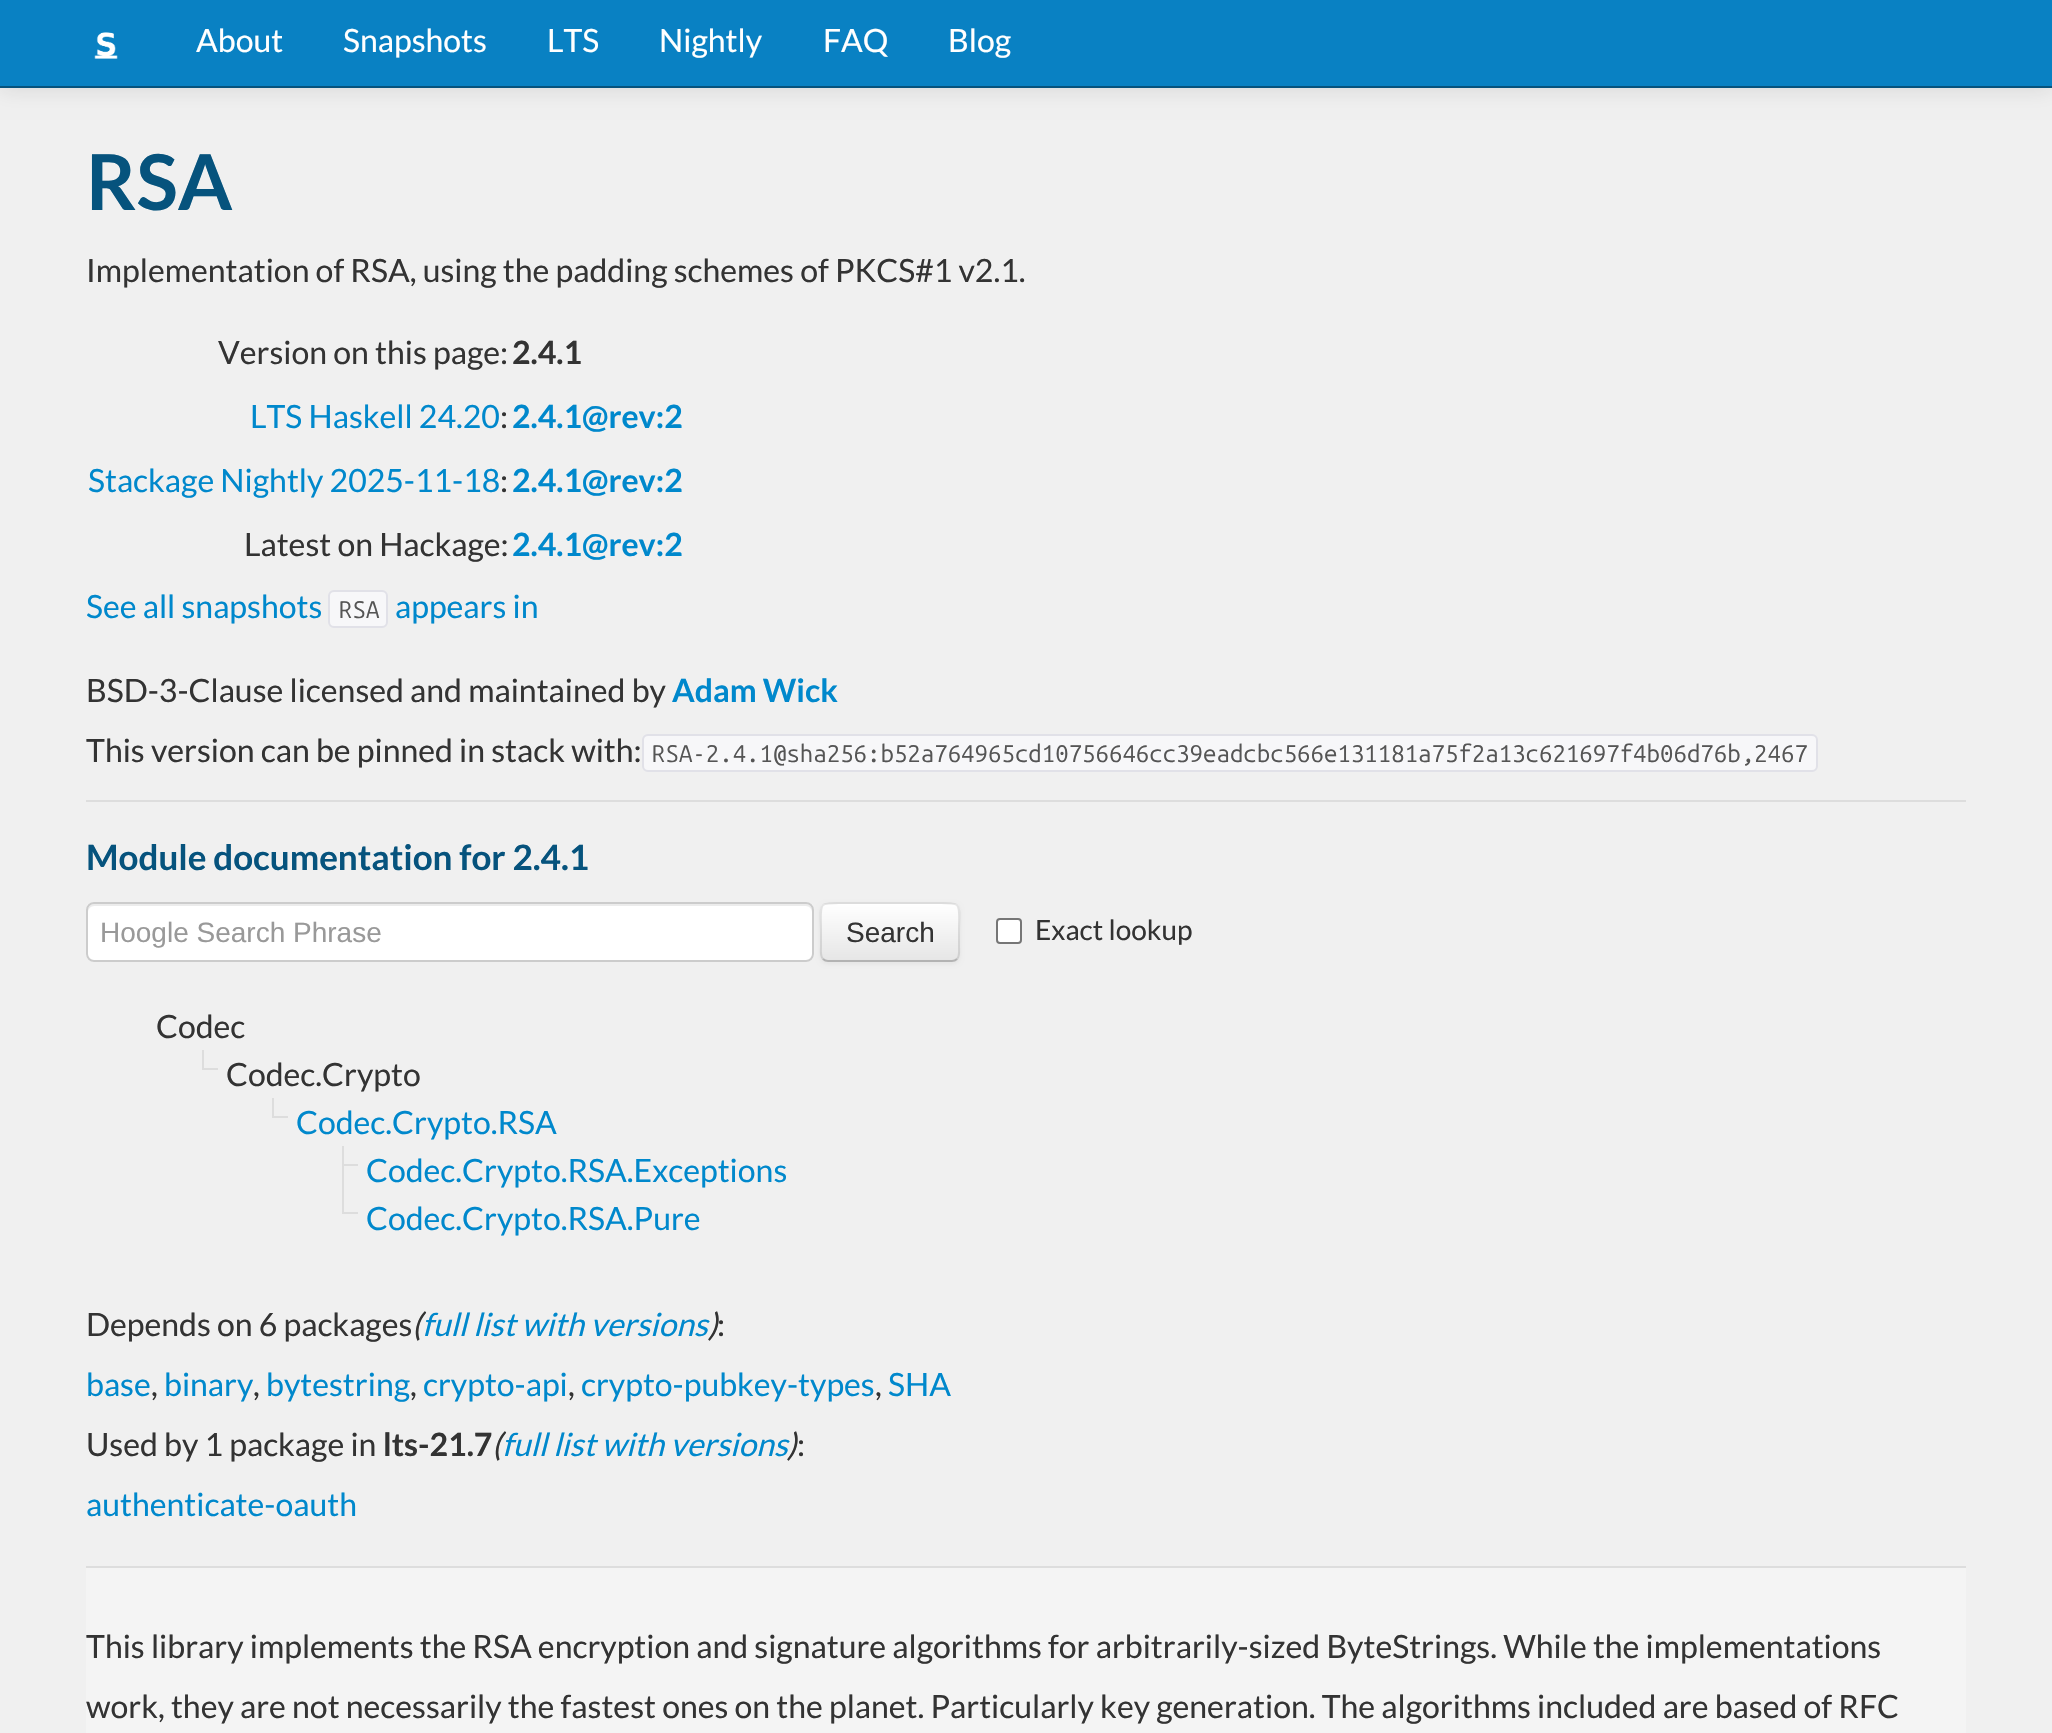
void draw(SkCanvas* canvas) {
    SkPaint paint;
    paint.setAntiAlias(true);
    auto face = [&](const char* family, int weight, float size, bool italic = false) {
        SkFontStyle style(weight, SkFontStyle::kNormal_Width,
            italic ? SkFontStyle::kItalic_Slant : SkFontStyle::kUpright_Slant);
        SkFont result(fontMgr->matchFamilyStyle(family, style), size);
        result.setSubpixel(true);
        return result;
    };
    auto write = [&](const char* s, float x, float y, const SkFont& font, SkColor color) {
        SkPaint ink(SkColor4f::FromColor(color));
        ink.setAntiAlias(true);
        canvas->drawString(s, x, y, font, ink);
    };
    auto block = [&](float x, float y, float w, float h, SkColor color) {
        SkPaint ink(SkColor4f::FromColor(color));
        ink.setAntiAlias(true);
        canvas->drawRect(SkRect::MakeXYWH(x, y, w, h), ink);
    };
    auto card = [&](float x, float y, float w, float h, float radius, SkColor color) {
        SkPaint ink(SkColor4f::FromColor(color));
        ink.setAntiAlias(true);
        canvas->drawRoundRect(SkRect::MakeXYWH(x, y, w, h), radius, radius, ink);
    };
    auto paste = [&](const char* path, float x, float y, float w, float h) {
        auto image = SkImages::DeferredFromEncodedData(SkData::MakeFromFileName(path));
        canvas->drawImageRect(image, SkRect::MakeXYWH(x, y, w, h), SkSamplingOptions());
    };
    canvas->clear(SkColorSetRGB(240, 240, 240));
    paint.setColor(SkColorSetARGB(26, 0, 0, 0));
    paint.setMaskFilter(SkMaskFilter::MakeBlur(kNormal_SkBlurStyle, 10));
    canvas->drawRect(SkRect::MakeXYWH(0, 2, 2052, 88), paint);
    paint.setMaskFilter(nullptr);
    block(0, 0, 2052, 86, SkColorSetRGB(9, 129, 195));
    block(0, 86, 2052, 2, SkColorSetRGB(6, 83, 125));
    paste("pic1.png", 94, 32, 24, 27);
    auto kFont1 = face("Lato", 400, 32);
    write("About", 196, 52, kFont1, SK_ColorWHITE);
    write("Snapshots", 343, 52, kFont1, SK_ColorWHITE);
    write("LTS", 547, 52, kFont1, SK_ColorWHITE);
    write("Nightly", 659, 52, kFont1, SK_ColorWHITE);
    write("FAQ", 823, 52, kFont1, SK_ColorWHITE);
    write("Blog", 948, 52, kFont1, SK_ColorWHITE);
    auto kFont2 = face("Lato", 700, 77);
    write("RSA", 86, 210, kFont2, SkColorSetRGB(6, 83, 125));
    write("Implementation of RSA, using the padding schemes of PKCS#1 v2.1.", 86, 282, kFont1, SkColorSetRGB(51, 51, 51));
    write("Version on this page:", 218, 364, kFont1, SkColorSetRGB(51, 51, 51));
    auto kFont3 = face("Lato", 700, 32);
    write("2.4.1", 512, 364, kFont3, SkColorSetRGB(51, 51, 51));
    write("LTS Haskell 24.20", 250, 428, kFont1, SkColorSetRGB(0, 136, 204));
    write(":", 500, 428, kFont1, SkColorSetRGB(51, 51, 51));
    write("2.4.1@rev:2", 512, 428, kFont3, SkColorSetRGB(0, 136, 204));
    write("Stackage Nightly 2025-11-18", 88, 492, kFont1, SkColorSetRGB(0, 136, 204));
    write(":", 500, 492, kFont1, SkColorSetRGB(51, 51, 51));
    write("2.4.1@rev:2", 512, 492, kFont3, SkColorSetRGB(0, 136, 204));
    write("Latest on Hackage:", 244, 556, kFont1, SkColorSetRGB(51, 51, 51));
    write("2.4.1@rev:2", 512, 556, kFont3, SkColorSetRGB(0, 136, 204));
    write("See all snapshots", 86, 618, kFont1, SkColorSetRGB(0, 136, 204));
    paint.setColor(SkColorSetRGB(247, 247, 249));
    canvas->drawRoundRect(SkRect::MakeXYWH(329, 591, 58, 36), 5, 5, paint);
    paint.setStyle(SkPaint::kStroke_Style);
    paint.setStrokeWidth(2);
    paint.setColor(SkColorSetRGB(225, 225, 232));
    canvas->drawRoundRect(SkRect::MakeXYWH(329, 591, 58, 36), 5, 5, paint);
    auto kFont4 = face("Ubuntu Mono", 400, 24);
    write("RSA", 339, 618, kFont4, SkColorSetRGB(85, 85, 85));
    write("appears in", 395, 618, kFont1, SkColorSetRGB(0, 136, 204));
    write("BSD-3-Clause licensed and maintained by", 86, 702, kFont1, SkColorSetRGB(51, 51, 51));
    write("Adam Wick", 672, 702, kFont3, SkColorSetRGB(0, 136, 204));
    write("This version can be pinned in stack with:", 86, 762, kFont1, SkColorSetRGB(51, 51, 51));
    paint.setStyle(SkPaint::kFill_Style);
    paint.setColor(SkColorSetRGB(247, 247, 249));
    canvas->drawRoundRect(SkRect::MakeXYWH(643, 735, 1174, 36), 5, 5, paint);
    paint.setStyle(SkPaint::kStroke_Style);
    paint.setColor(SkColorSetRGB(225, 225, 232));
    canvas->drawRoundRect(SkRect::MakeXYWH(643, 735, 1174, 36), 5, 5, paint);
    write("RSA-2.4.1@sha256:b52a764965cd10756646cc39eadcbc566e131181a75f2a13c621697f4b06d76b,2467", 652, 762, kFont4, SkColorSetRGB(85, 85, 85));
    block(86, 800, 1880, 2, SkColorSetRGB(221, 221, 221));
    auto kFont5 = face("Lato", 700, 35);
    write("Module documentation for 2.4.1", 86, 870, kFont5, SkColorSetRGB(6, 83, 125));
    card(86, 902, 728, 60, 8, SK_ColorWHITE);
    paint.setStyle(SkPaint::kFill_Style);
    paint.setColor(SkColorSetRGB(236, 236, 236));
    canvas->drawPath(SkPathBuilder().moveTo(94, 906).lineTo(806, 906).cubicTo(809, 906, 812, 909, 812, 912).lineTo(812, 910).cubicTo(812, 907, 809, 904, 806, 904).lineTo(94, 904).cubicTo(91, 904, 88, 907, 88, 910).lineTo(88, 912).cubicTo(88, 909, 91, 906, 94, 906).close().detach(), paint);
    paint.setStyle(SkPaint::kStroke_Style);
    paint.setColor(SkColorSetRGB(204, 204, 204));
    canvas->drawRoundRect(SkRect::MakeXYWH(87, 903, 726, 58), 7, 7, paint);
    auto kFont6 = face("Liberation Sans", 400, 28);
    write("Hoogle Search Phrase", 100, 942, kFont6, SkColorSetRGB(153, 153, 153));
    paint.setStyle(SkPaint::kFill_Style);
    paint.setColor(SkColorSetARGB(13, 0, 0, 0));
    paint.setMaskFilter(SkMaskFilter::MakeBlur(kNormal_SkBlurStyle, 2));
    canvas->drawRoundRect(SkRect::MakeXYWH(820, 904, 140, 60), 8, 8, paint);
    paint.setMaskFilter(nullptr);
    card(820, 902, 140, 60, 8, SkColorSetRGB(245, 245, 245));
    canvas->save();
    canvas->clipPath(SkPathBuilder().moveTo(828, 902).lineTo(952, 902).cubicTo(956.5f, 902, 960, 905.5f, 960, 910).lineTo(960, 954).cubicTo(960, 958.5f, 956.5f, 962, 952, 962).lineTo(828, 962).cubicTo(823.5f, 962, 820, 958.5f, 820, 954).lineTo(820, 910).cubicTo(820, 905.5f, 823.5f, 902, 828, 902).close().detach(), true);
    {
        const SkColor colors[] = {SK_ColorWHITE, SkColorSetRGB(230, 230, 230)};
        const float stops[] = {0, 1};
        const SkPoint ends[] = {{890, 904}, {890, 960}};
        paint.setShader(SkGradientShader::MakeLinear(ends, colors, stops, 2, SkTileMode::kClamp));
        paint.setAlpha(255);
    }
    canvas->drawRect(SkRect::MakeXYWH(820, 904, 140, 56), paint);
    canvas->restore();
    paint.setStyle(SkPaint::kStroke_Style);
    paint.setShader(nullptr);
    paint.setColor(SkColorSetRGB(179, 179, 179));
    canvas->drawPath(SkPathBuilder().moveTo(957, 959).cubicTo(955.5f, 960.5f, 954, 961, 952, 961).lineTo(828, 961).cubicTo(826, 961, 824.5f, 960.5f, 823, 959).detach(), paint);
    paint.setColor(SkColorSetARGB(26, 0, 0, 0));
    canvas->drawPath(SkPathBuilder().moveTo(823, 959).cubicTo(820, 956, 821, 950.5f, 821, 946.5f).lineTo(821, 932).cubicTo(821, 900, 816, 903, 848.5f, 903).lineTo(931.5f, 903).cubicTo(964, 903, 959, 900, 959, 932).lineTo(959, 946.5f).cubicTo(959, 950.5f, 960, 956, 957, 959).detach(), paint);
    write("Search", 846, 942, kFont6, SkColorSetRGB(51, 51, 51));
    paint.setStyle(SkPaint::kFill_Style);
    paint.setColor(SK_ColorWHITE);
    canvas->drawRoundRect(SkRect::MakeXYWH(997, 919, 24, 24), 3, 3, paint);
    paint.setStyle(SkPaint::kStroke_Style);
    paint.setColor(SkColorSetRGB(118, 118, 118));
    canvas->drawRoundRect(SkRect::MakeXYWH(997, 919, 24, 24), 3, 3, paint);
    auto kFont7 = face("Lato", 400, 28);
    write("Exact lookup", 1035, 940, kFont7, SkColorSetRGB(51, 51, 51));
    write("Codec", 156, 1038, kFont1, SkColorSetRGB(51, 51, 51));
    block(202, 1050, 2, 18, SkColorSetRGB(221, 221, 221));
    block(202, 1068, 16, 2, SkColorSetRGB(221, 221, 221));
    write("Codec.Crypto", 226, 1086, kFont1, SkColorSetRGB(51, 51, 51));
    block(272, 1098, 2, 18, SkColorSetRGB(221, 221, 221));
    block(272, 1116, 16, 2, SkColorSetRGB(221, 221, 221));
    write("Codec.Crypto.RSA", 296, 1134, kFont1, SkColorSetRGB(0, 136, 204));
    block(342, 1164, 16, 2, SkColorSetRGB(221, 221, 221));
    block(342, 1146, 2, 66, SkColorSetRGB(221, 221, 221));
    write("Codec.Crypto.RSA.Exceptions", 366, 1182, kFont1, SkColorSetRGB(0, 136, 204));
    block(342, 1212, 16, 2, SkColorSetRGB(221, 221, 221));
    write("Codec.Crypto.RSA.Pure", 366, 1230, kFont1, SkColorSetRGB(0, 136, 204));
    write("Depends on 6 packages", 86, 1336, kFont1, SkColorSetRGB(51, 51, 51));
    auto kFont8 = face("Lato", 400, 32, true);
    write("(", 412, 1336, kFont8, SkColorSetRGB(51, 51, 51));
    write("full list with versions", 422, 1336, kFont8, SkColorSetRGB(0, 136, 204));
    write(")", 708, 1336, kFont8, SkColorSetRGB(51, 51, 51));
    write(":", 717, 1336, kFont1, SkColorSetRGB(51, 51, 51));
    write("base", 86, 1396, kFont1, SkColorSetRGB(0, 136, 204));
    write(",", 151, 1396, kFont1, SkColorSetRGB(51, 51, 51));
    write("binary", 164, 1396, kFont1, SkColorSetRGB(0, 136, 204));
    write(",", 253, 1396, kFont1, SkColorSetRGB(51, 51, 51));
    write("bytestring", 266, 1396, kFont1, SkColorSetRGB(0, 136, 204));
    write(",", 410, 1396, kFont1, SkColorSetRGB(51, 51, 51));
    write("crypto-api", 423, 1396, kFont1, SkColorSetRGB(0, 136, 204));
    write(",", 568, 1396, kFont1, SkColorSetRGB(51, 51, 51));
    write("crypto-pubkey-types", 581, 1396, kFont1, SkColorSetRGB(0, 136, 204));
    write(",", 875, 1396, kFont1, SkColorSetRGB(51, 51, 51));
    write("SHA", 888, 1396, kFont1, SkColorSetRGB(0, 136, 204));
    write("Used by 1 package in", 86, 1456, kFont1, SkColorSetRGB(51, 51, 51));
    write("lts-21.7", 383, 1456, kFont3, SkColorSetRGB(51, 51, 51));
    write("(", 492, 1456, kFont8, SkColorSetRGB(51, 51, 51));
    write("full list with versions", 502, 1456, kFont8, SkColorSetRGB(0, 136, 204));
    write(")", 787, 1456, kFont8, SkColorSetRGB(51, 51, 51));
    write(":", 797, 1456, kFont1, SkColorSetRGB(51, 51, 51));
    write("authenticate-oauth", 86, 1516, kFont1, SkColorSetRGB(0, 136, 204));
    block(86, 1568, 1880, 165, SkColorSetRGB(244, 244, 244));
    block(86, 1566, 1880, 2, SkColorSetRGB(221, 221, 221));
    write("This library implements the RSA encryption and signature algorithms for arbitrarily-sized ByteStrings. While the implementations", 86, 1658, kFont1, SkColorSetRGB(51, 51, 51));
    write("work, they are not necessarily the fastest ones on the planet. Particularly key generation. The algorithms included are based of RFC", 86, 1718, kFont1, SkColorSetRGB(51, 51, 51));
}
